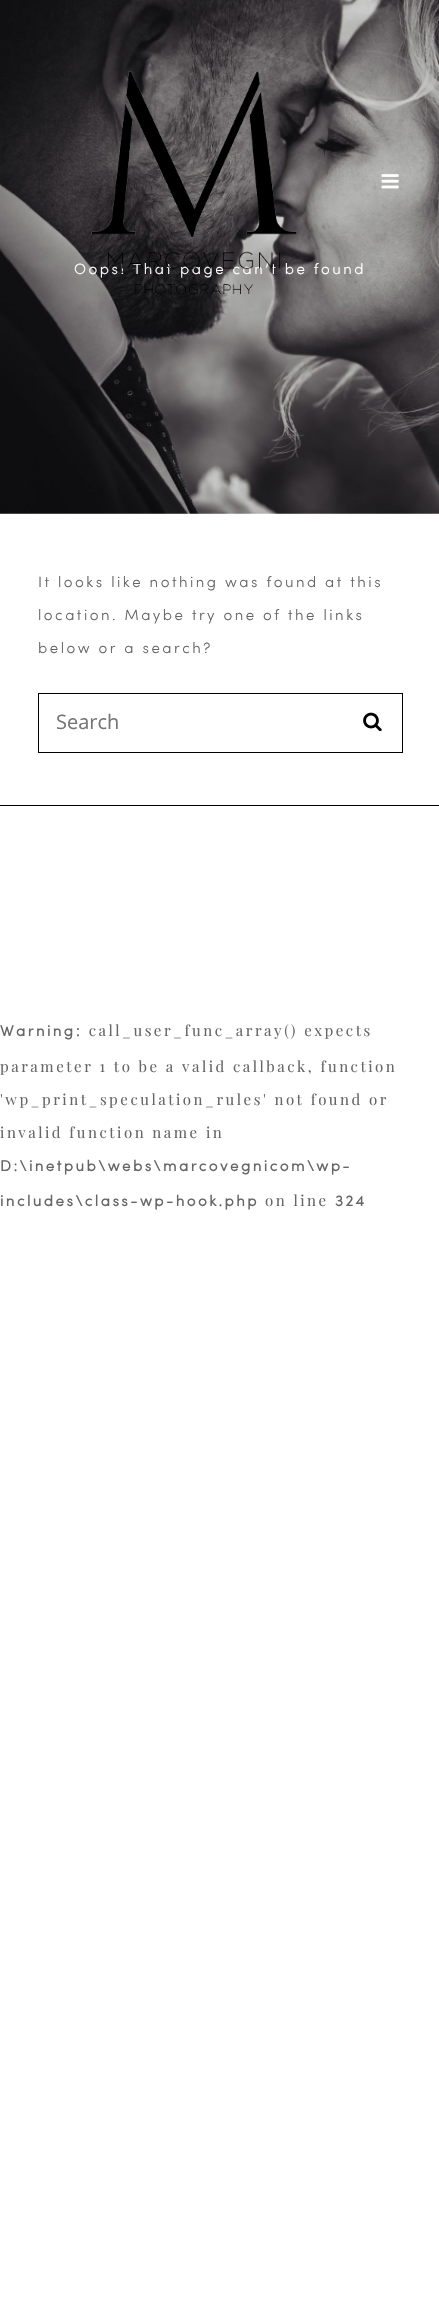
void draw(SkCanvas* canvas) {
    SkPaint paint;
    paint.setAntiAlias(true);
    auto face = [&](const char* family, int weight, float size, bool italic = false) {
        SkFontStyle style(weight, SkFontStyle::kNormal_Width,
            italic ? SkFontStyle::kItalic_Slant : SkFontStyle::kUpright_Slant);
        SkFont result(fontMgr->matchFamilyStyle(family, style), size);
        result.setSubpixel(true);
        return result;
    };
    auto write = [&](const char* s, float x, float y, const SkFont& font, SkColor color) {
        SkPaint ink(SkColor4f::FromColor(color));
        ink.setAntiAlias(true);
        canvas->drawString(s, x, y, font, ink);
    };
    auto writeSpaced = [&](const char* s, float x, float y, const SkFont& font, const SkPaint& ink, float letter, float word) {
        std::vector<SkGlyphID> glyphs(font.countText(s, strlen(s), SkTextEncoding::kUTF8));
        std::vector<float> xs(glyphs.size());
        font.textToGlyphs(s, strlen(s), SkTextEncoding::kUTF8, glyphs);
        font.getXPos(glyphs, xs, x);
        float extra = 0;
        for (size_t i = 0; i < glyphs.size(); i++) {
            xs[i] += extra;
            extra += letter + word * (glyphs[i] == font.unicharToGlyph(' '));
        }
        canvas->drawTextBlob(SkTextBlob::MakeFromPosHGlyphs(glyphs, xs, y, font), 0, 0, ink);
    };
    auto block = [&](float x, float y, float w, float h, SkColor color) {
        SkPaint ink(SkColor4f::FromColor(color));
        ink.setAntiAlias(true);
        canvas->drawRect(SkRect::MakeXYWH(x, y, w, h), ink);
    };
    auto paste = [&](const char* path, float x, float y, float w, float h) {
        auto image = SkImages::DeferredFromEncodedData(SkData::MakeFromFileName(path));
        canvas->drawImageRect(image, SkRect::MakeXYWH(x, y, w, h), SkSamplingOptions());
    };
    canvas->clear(SK_ColorWHITE);
    paste("pic3.png", 0, 0, 439, 514);
    auto kFont1 = face("Sofia", 300, 15);
    paint.setColor(SK_ColorWHITE);
    writeSpaced("Oops! That page can’t be found", 74, 274, kFont1, paint, 2.5f, 0);
    paste("pic1.png", 91, 71, 206, 224);
    paste("pic2.png", 381, 174, 18, 15);
    paint.setColor(SkColorSetRGB(102, 102, 102));
    writeSpaced("It looks like nothing was found at this", 38, 587, kFont1, paint, 2.5f, 0);
    writeSpaced("location. Maybe try one of the links", 38, 620, kFont1, paint, 2.5f, 0);
    writeSpaced("below or a search?", 38, 653, kFont1, paint, 2.5f, 0);
    paint.setStyle(SkPaint::kStroke_Style);
    paint.setStrokeWidth(1);
    paint.setColor(SK_ColorBLACK);
    canvas->drawRect(SkRect::MakeXYWH(38.5f, 693.5f, 364, 59), paint);
    auto kFont2 = face("Open Sans", 400, 20);
    write("Search", 56, 729, kFont2, SkColorSetRGB(117, 117, 117));
    paste("pic4.png", 363, 712, 19, 19);
    block(0, 805, 439, 1, SK_ColorBLACK);
    auto kFont3 = face("Sofia", 700, 15);
    paint.setStyle(SkPaint::kFill_Style);
    paint.setColor(SkColorSetRGB(102, 102, 102));
    writeSpaced("Warning", 0, 1036, kFont3, paint, 2.5f, 0);
    auto kFont4 = face("Playfair Display", 400, 15);
    writeSpaced(": call_user_func_array() expects", 76, 1036, kFont4, paint, 2.5f, 0);
    writeSpaced("parameter 1 to be a valid callback, function", 0, 1072, kFont4, paint, 2.5f, 0);
    writeSpaced("'wp_print_speculation_rules' not found or", 0, 1105, kFont4, paint, 2.5f, 0);
    writeSpaced("invalid function name in", 0, 1138, kFont4, paint, 2.5f, 0);
    writeSpaced("D:\\inetpub\\webs\\marcovegnicom\\wp-", 0, 1171, kFont3, paint, 2.5f, 0);
    writeSpaced("includes\\class-wp-hook.php", 0, 1206, kFont3, paint, 2.5f, 0);
    writeSpaced("on line", 265, 1206, kFont4, paint, 2.5f, 0);
    writeSpaced("324", 335, 1206, kFont3, paint, 2.5f, 0);
}
